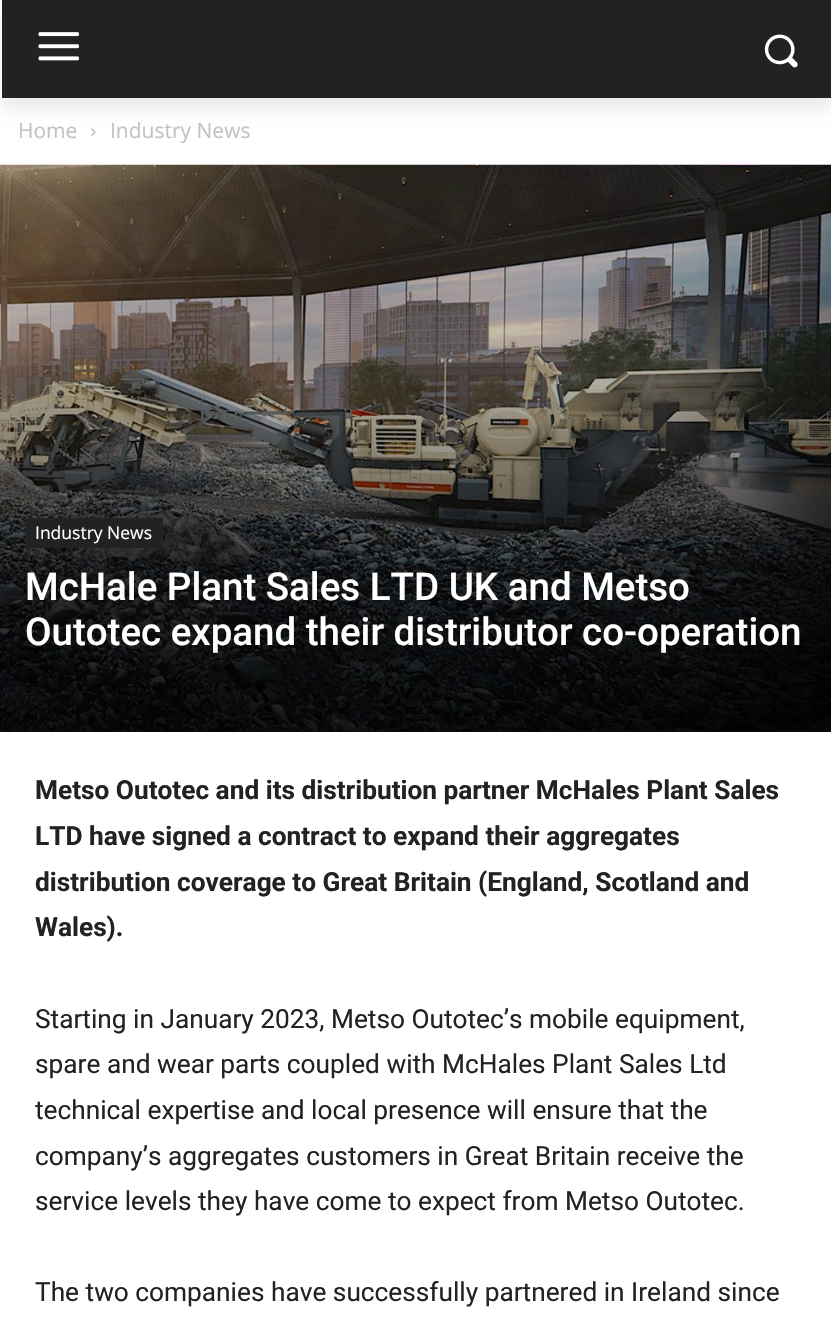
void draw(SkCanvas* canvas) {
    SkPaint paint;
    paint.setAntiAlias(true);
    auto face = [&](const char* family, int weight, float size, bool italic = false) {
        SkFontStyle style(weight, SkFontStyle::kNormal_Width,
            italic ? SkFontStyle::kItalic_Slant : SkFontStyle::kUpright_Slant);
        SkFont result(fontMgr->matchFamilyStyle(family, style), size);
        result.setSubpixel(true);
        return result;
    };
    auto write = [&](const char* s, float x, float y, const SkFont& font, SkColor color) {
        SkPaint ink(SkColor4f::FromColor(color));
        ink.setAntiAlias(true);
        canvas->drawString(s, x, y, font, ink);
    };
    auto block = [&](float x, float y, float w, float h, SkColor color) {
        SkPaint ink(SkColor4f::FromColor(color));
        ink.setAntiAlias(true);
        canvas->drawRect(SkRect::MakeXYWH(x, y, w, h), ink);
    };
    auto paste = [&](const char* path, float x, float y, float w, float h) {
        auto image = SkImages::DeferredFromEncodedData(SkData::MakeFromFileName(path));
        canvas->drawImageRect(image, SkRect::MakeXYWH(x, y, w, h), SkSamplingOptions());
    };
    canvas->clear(SK_ColorWHITE);
    block(2, 0, 829, 98, SkColorSetRGB(34, 34, 34));
    paste("pic1.png", 38, 32, 41, 29);
    paste("pic2.png", 764, 34, 34, 34);
    paste("pic3.png", 91, 128, 5, 9);
    canvas->save();
    canvas->clipPath(SkPathBuilder(SkPathFillType::kEvenOdd).moveTo(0, 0).lineTo(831, 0).lineTo(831, 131).lineTo(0, 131).close().moveTo(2, 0).lineTo(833, 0).lineTo(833, 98).lineTo(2, 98).close().detach(), true);
    paint.setColor(SkColorSetARGB(20, 0, 0, 0));
    paint.setMaskFilter(SkMaskFilter::MakeBlur(kNormal_SkBlurStyle, 7));
    canvas->drawRect(SkRect::MakeXYWH(2, 11, 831, 98), paint);
    paint.setMaskFilter(nullptr);
    canvas->restore();
    auto kFont1 = face("Open Sans", 400, 21);
    write("Home", 18, 138, kFont1, SkColorSetRGB(195, 195, 195));
    write("Industry News", 110, 138, kFont1, SkColorSetRGB(195, 195, 195));
    block(0, 731, 831, 1, SkColorSetRGB(68, 68, 68));
    paste("pic4.png", 0, 164, 831, 568);
    {
        const SkColor colors[] = {SkColorSetARGB(0, 0, 0, 0), SkColorSetARGB(204, 0, 0, 0)};
        const float stops[] = {0, 1};
        const SkPoint ends[] = {{416, 164}, {416, 732}};
        paint.setShader(SkGradientShader::MakeLinear(ends, colors, stops, 2, SkTileMode::kClamp));
        paint.setAlpha(255);
    }
    canvas->drawRect(SkRect::MakeXYWH(0, 179, 831, 553), paint);
    block(25, 518, 138, 30, SkColorSetRGB(34, 34, 34));
    auto kFont2 = face("Open Sans", 400, 17.5f);
    write("Industry News", 35, 539, kFont2, SK_ColorWHITE);
    auto kFont3 = face("Roboto", 500, 38.5f);
    write("McHale Plant Sales LTD UK and Metso", 25, 600, kFont3, SK_ColorWHITE);
    write("Outotec expand their distributor co-operation", 25, 645, kFont3, SK_ColorWHITE);
    auto kFont4 = face("Roboto", 700, 26.25f);
    write("Metso Outotec and its distribution partner McHales Plant Sales", 35, 799, kFont4, SkColorSetRGB(34, 34, 34));
    write("LTD have signed a contract to expand their aggregates", 35, 845, kFont4, SkColorSetRGB(34, 34, 34));
    write("distribution coverage to Great Britain (England, Scotland and", 35, 891, kFont4, SkColorSetRGB(34, 34, 34));
    write("Wales).", 35, 936, kFont4, SkColorSetRGB(34, 34, 34));
    auto kFont5 = face("Roboto", 400, 26.25f);
    write("Starting in January 2023, Metso Outotec’s mobile equipment,", 35, 1028, kFont5, SkColorSetRGB(34, 34, 34));
    write("spare and wear parts coupled with McHales Plant Sales Ltd", 35, 1073, kFont5, SkColorSetRGB(34, 34, 34));
    write("technical expertise and local presence will ensure that the", 35, 1119, kFont5, SkColorSetRGB(34, 34, 34));
    write("company’s aggregates customers in Great Britain receive the", 35, 1165, kFont5, SkColorSetRGB(34, 34, 34));
    write("service levels they have come to expect from Metso Outotec.", 35, 1210, kFont5, SkColorSetRGB(34, 34, 34));
    write("The two companies have successfully partnered in Ireland since", 35, 1301, kFont5, SkColorSetRGB(34, 34, 34));
}
